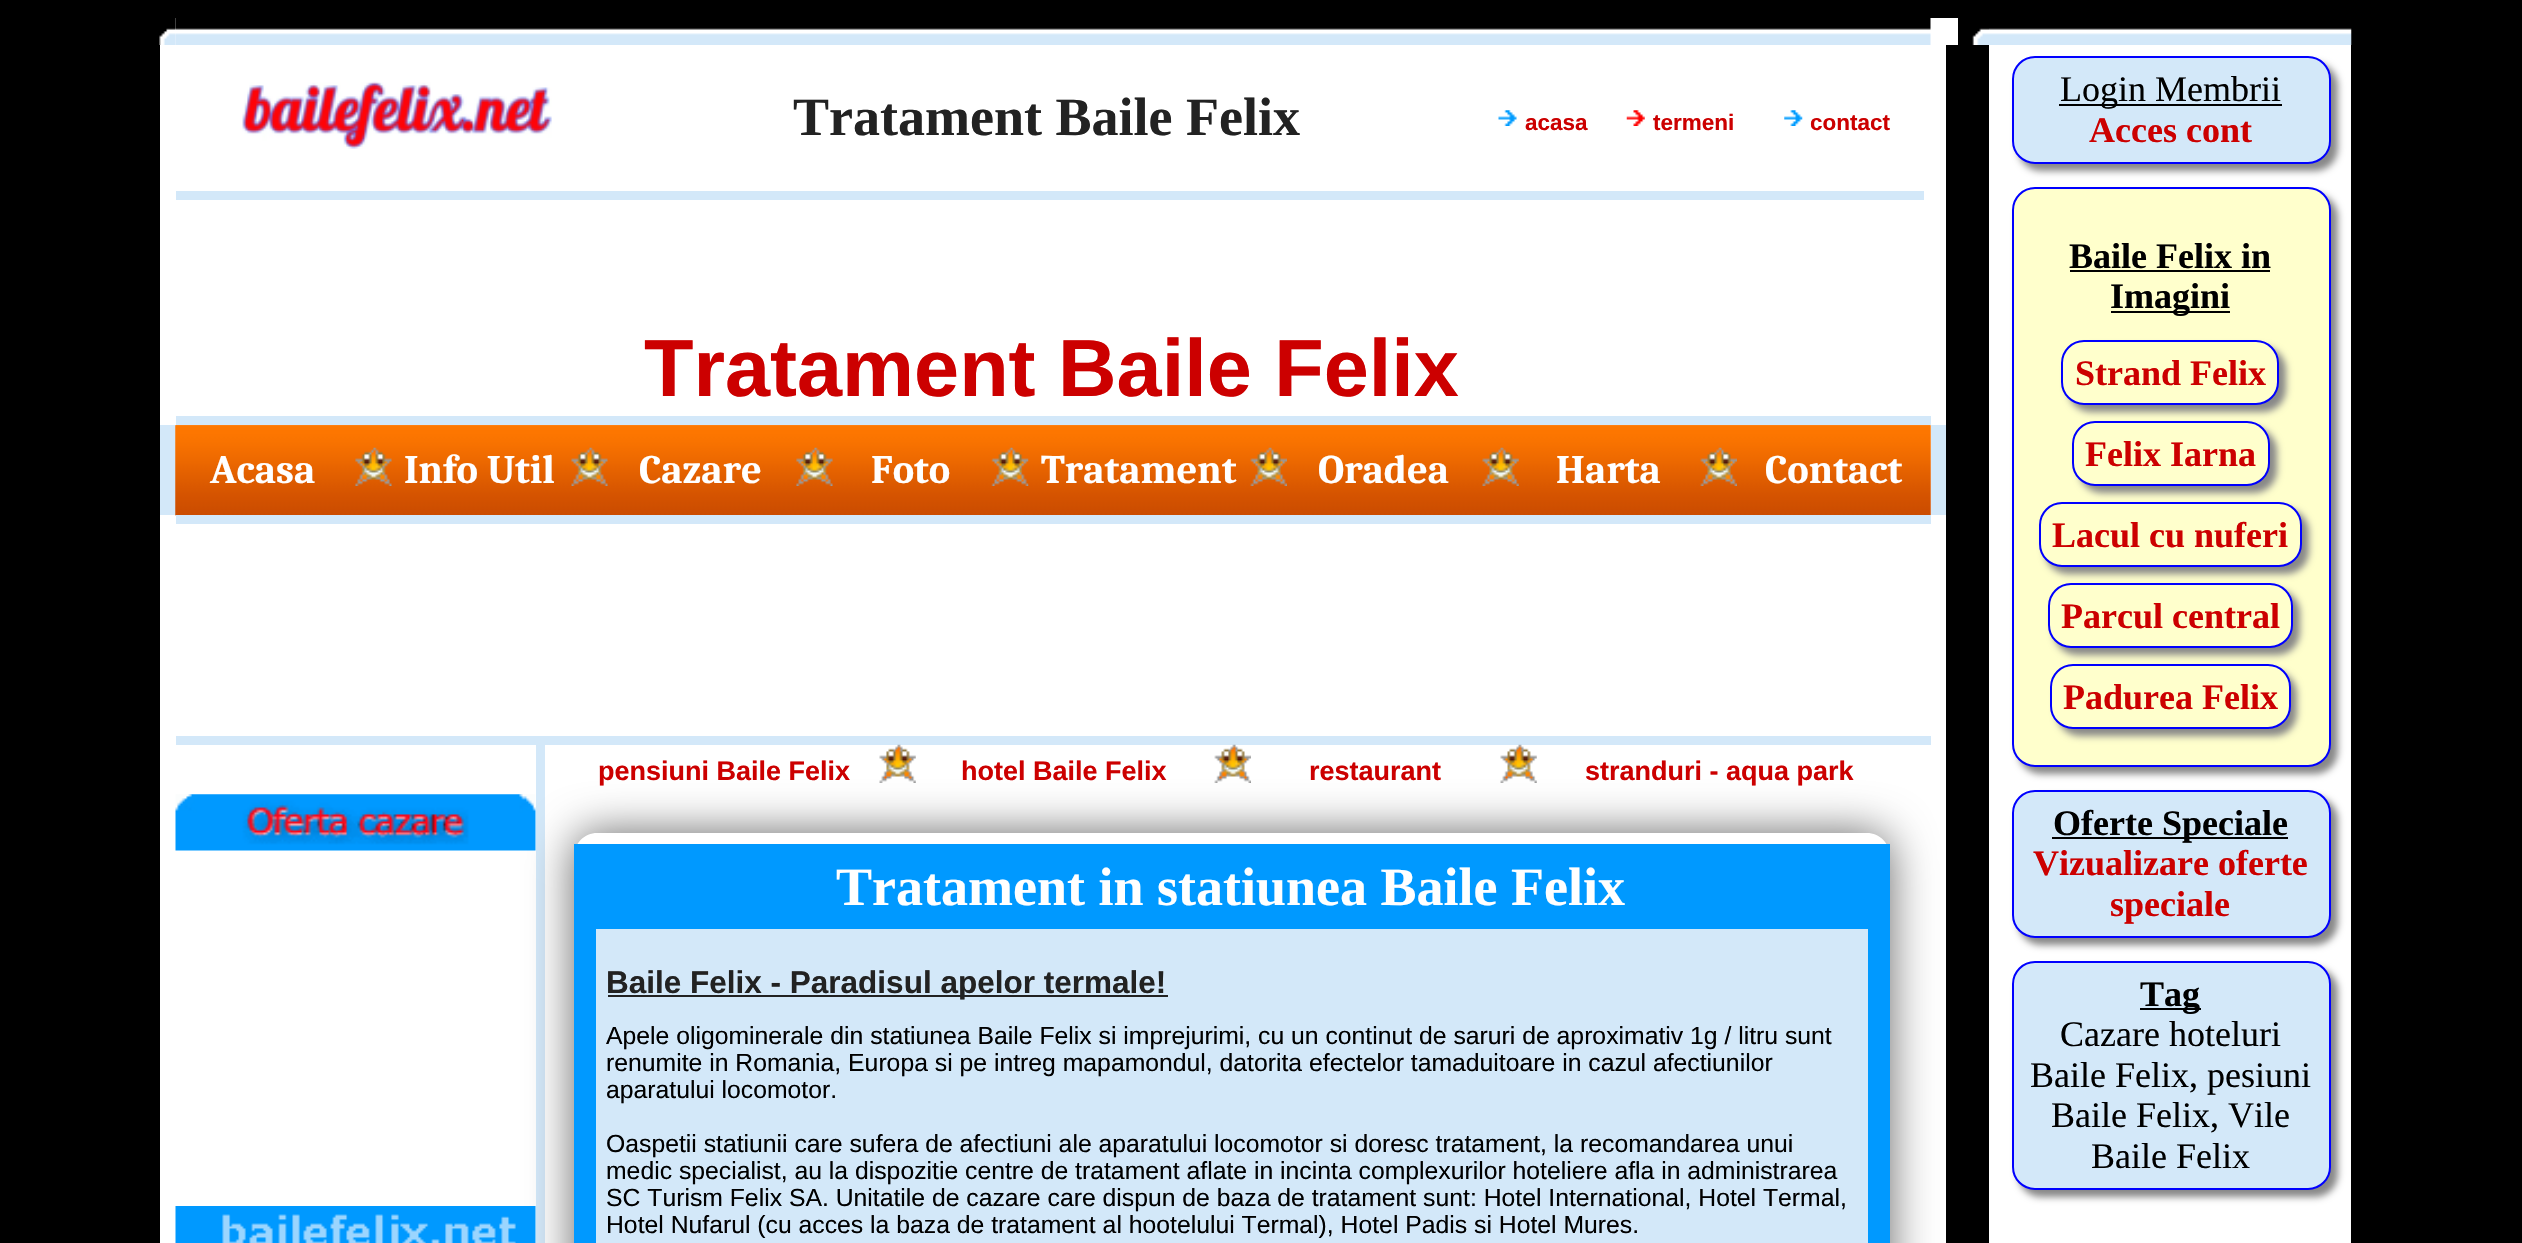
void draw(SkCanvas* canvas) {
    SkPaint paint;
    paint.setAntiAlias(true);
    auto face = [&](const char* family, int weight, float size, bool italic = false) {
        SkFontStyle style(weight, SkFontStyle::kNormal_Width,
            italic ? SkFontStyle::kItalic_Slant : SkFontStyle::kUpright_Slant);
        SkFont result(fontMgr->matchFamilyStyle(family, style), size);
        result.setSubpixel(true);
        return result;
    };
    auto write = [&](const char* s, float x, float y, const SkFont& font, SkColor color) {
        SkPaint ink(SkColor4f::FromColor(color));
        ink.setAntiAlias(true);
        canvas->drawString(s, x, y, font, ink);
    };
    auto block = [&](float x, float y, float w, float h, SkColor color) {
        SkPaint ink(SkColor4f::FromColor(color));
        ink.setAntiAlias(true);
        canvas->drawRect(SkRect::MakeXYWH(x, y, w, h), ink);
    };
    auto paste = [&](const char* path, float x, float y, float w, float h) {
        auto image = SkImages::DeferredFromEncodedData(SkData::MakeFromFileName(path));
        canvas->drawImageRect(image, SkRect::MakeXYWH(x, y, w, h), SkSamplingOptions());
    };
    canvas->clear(SK_ColorBLACK);
    block(160, 18, 1798, 1225, SK_ColorWHITE);
    paste("pic1.png", 149, 18, 27, 27);
    paste("pic2.png", 175, 18, 1756, 27);
    block(176, 191, 1748, 9, SkColorSetRGB(211, 232, 249));
    paste("pic3.png", 242, 81, 310, 68);
    auto kFont1 = face("Liberation Serif", 700, 54);
    write("Tratament Baile Felix", 793, 135, kFont1, SkColorSetRGB(34, 34, 34));
    paste("pic4.png", 1498, 110, 19, 16);
    auto kFont2 = face("Liberation Sans", 700, 22.5f);
    write("acasa", 1525, 130, kFont2, SkColorSetRGB(204, 0, 0));
    paste("pic5.png", 1626, 110, 19, 16);
    write("termeni", 1653, 130, kFont2, SkColorSetRGB(204, 0, 0));
    paste("pic6.png", 1784, 110, 19, 16);
    write("contact", 1810, 130, kFont2, SkColorSetRGB(204, 0, 0));
    block(1946, 45, 12, 700, SK_ColorBLACK);
    block(176, 416, 1755, 9, SkColorSetRGB(211, 232, 249));
    auto kFont3 = face("Liberation Sans", 700, 81);
    write("Tratament Baile Felix", 644, 396, kFont3, SkColorSetRGB(204, 0, 0));
    block(160, 425, 16, 90, SkColorSetRGB(211, 232, 249));
    paste("pic7.png", 175, 425, 1756, 91);
    paste("pic8.png", 175, 425, 1756, 91);
    auto kFont4 = face("Caladea", 700, 40.5f);
    write("Acasa", 210, 483, kFont4, SK_ColorWHITE);
    paste("pic9.png", 355, 447, 37, 39);
    write("Info Util", 404, 483, kFont4, SK_ColorWHITE);
    paste("pic10.png", 571, 447, 37, 39);
    write("Cazare", 639, 483, kFont4, SK_ColorWHITE);
    paste("pic9.png", 796, 447, 37, 39);
    write("Foto", 871, 483, kFont4, SK_ColorWHITE);
    paste("pic11.png", 991, 447, 38, 39);
    write("Tratament", 1041, 483, kFont4, SK_ColorWHITE);
    paste("pic12.png", 1250, 447, 37, 39);
    write("Oradea", 1318, 483, kFont4, SK_ColorWHITE);
    paste("pic13.png", 1482, 447, 37, 39);
    write("Harta", 1556, 483, kFont4, SK_ColorWHITE);
    paste("pic12.png", 1700, 447, 37, 39);
    write("Contact", 1765, 483, kFont4, SK_ColorWHITE);
    block(1931, 425, 15, 90, SkColorSetRGB(211, 232, 249));
    block(176, 515, 1755, 9, SkColorSetRGB(211, 232, 249));
    block(176, 736, 1755, 9, SkColorSetRGB(211, 232, 249));
    block(536, 745, 9, 498, SkColorSetRGB(211, 232, 249));
    canvas->save();
    canvas->clipPath(SkPathBuilder(SkPathFillType::kEvenOdd).moveTo(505, 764).lineTo(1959, 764).lineTo(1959, 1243).lineTo(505, 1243).close().moveTo(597, 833).lineTo(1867, 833).cubicTo(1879.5f, 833, 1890, 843.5f, 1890, 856).lineTo(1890, 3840).cubicTo(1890, 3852.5f, 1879.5f, 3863, 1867, 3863).lineTo(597, 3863).cubicTo(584.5f, 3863, 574, 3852.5f, 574, 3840).lineTo(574, 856).cubicTo(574, 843.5f, 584.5f, 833, 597, 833).close().detach(), true);
    paint.setColor(SkColorSetRGB(102, 102, 102));
    paint.setMaskFilter(SkMaskFilter::MakeBlur(kNormal_SkBlurStyle, 22.5f));
    canvas->drawRoundRect(SkRect::MakeXYWH(574, 833, 1316, 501), 23, 23, paint);
    paint.setMaskFilter(nullptr);
    canvas->restore();
    paste("pic14.png", 175, 794, 361, 57);
    paste("pic15.png", 175, 1206, 361, 37);
    auto kFont5 = face("Liberation Sans", 700, 27);
    write("pensiuni Baile Felix", 598, 780, kFont5, SkColorSetRGB(204, 0, 0));
    paste("pic16.png", 879, 744, 37, 39);
    write("hotel Baile Felix", 961, 780, kFont5, SkColorSetRGB(204, 0, 0));
    paste("pic17.png", 1214, 744, 37, 39);
    write("restaurant", 1309, 780, kFont5, SkColorSetRGB(204, 0, 0));
    paste("pic18.png", 1500, 744, 37, 39);
    write("stranduri - aqua park", 1585, 780, kFont5, SkColorSetRGB(204, 0, 0));
    block(596, 844, 1272, 85, SkColorSetRGB(0, 153, 255));
    block(1868, 844, 22, 399, SkColorSetRGB(0, 153, 255));
    block(574, 844, 22, 399, SkColorSetRGB(0, 153, 255));
    write("Tratament in statiunea Baile Felix", 836, 905, kFont1, SK_ColorWHITE);
    block(596, 929, 1272, 314, SkColorSetRGB(211, 232, 249));
    block(608, 995, 560, 2, SkColorSetRGB(34, 34, 34));
    auto kFont6 = face("Liberation Sans", 700, 31.5f);
    write("Baile Felix - Paradisul apelor termale!", 606, 993, kFont6, SkColorSetRGB(34, 34, 34));
    auto kFont7 = face("Liberation Sans", 400, 24.75f);
    write("Apele oligominerale din statiunea Baile Felix si imprejurimi, cu un continut de saruri de aproximativ 1g / litru sunt", 606, 1044, kFont7, SK_ColorBLACK);
    write("renumite in Romania, Europa si pe intreg mapamondul, datorita efectelor tamaduitoare in cazul afectiunilor", 606, 1071, kFont7, SK_ColorBLACK);
    write("aparatului locomotor.", 606, 1098, kFont7, SK_ColorBLACK);
    write("Oaspetii statiunii care sufera de afectiuni ale aparatului locomotor si doresc tratament, la recomandarea unui", 606, 1152, kFont7, SK_ColorBLACK);
    write("medic specialist, au la dispozitie centre de tratament aflate in incinta complexurilor hoteliere afla in administrarea", 606, 1179, kFont7, SK_ColorBLACK);
    write("SC Turism Felix SA. Unitatile de cazare care dispun de baza de tratament sunt: Hotel International, Hotel Termal,", 606, 1206, kFont7, SK_ColorBLACK);
    write("Hotel Nufarul (cu acces la baza de tratament al hootelului Termal), Hotel Padis si Hotel Mures.", 606, 1233, kFont7, SK_ColorBLACK);
    block(1946, 745, 12, 498, SK_ColorBLACK);
    paste("pic19.png", 1972, 28, 17, 17);
    paste("pic20.png", 1989, 28, 363, 17);
    block(1989, 45, 362, 1198, SK_ColorWHITE);
    paint.setColor(SkColorSetRGB(136, 136, 136));
    paint.setMaskFilter(SkMaskFilter::MakeBlur(kNormal_SkBlurStyle, 3.5f));
    canvas->drawRoundRect(SkRect::MakeXYWH(2018, 63, 320, 108), 23, 23, paint);
    paint.setMaskFilter(nullptr);
    paint.setColor(SkColorSetRGB(211, 232, 249));
    canvas->drawRoundRect(SkRect::MakeXYWH(2013, 57, 317, 106), 22, 22, paint);
    paint.setStyle(SkPaint::kStroke_Style);
    paint.setStrokeWidth(2);
    paint.setColor(SkColorSetRGB(0, 0, 255));
    canvas->drawRoundRect(SkRect::MakeXYWH(2013, 57, 317, 106), 22, 22, paint);
    block(2059, 104, 223, 2, SK_ColorBLACK);
    auto kFont8 = face("Liberation Serif", 400, 36);
    write("Login Membrii", 2060, 101, kFont8, SK_ColorBLACK);
    auto kFont9 = face("Liberation Serif", 700, 36);
    write("Acces cont", 2089, 142, kFont9, SkColorSetRGB(204, 0, 0));
    paint.setStyle(SkPaint::kFill_Style);
    paint.setColor(SkColorSetRGB(136, 136, 136));
    paint.setMaskFilter(SkMaskFilter::MakeBlur(kNormal_SkBlurStyle, 3.5f));
    canvas->drawRoundRect(SkRect::MakeXYWH(2018, 194, 320, 580), 23, 23, paint);
    paint.setMaskFilter(nullptr);
    paint.setColor(SkColorSetRGB(255, 255, 204));
    canvas->drawRoundRect(SkRect::MakeXYWH(2013, 188, 317, 578), 22, 22, paint);
    paint.setStyle(SkPaint::kStroke_Style);
    paint.setColor(SkColorSetRGB(0, 0, 255));
    canvas->drawRoundRect(SkRect::MakeXYWH(2013, 188, 317, 578), 22, 22, paint);
    write("Baile Felix in", 2069, 268, kFont9, SK_ColorBLACK);
    block(2070, 270, 200, 2, SK_ColorBLACK);
    block(2111, 311, 119, 2, SK_ColorBLACK);
    write("Imagini", 2110, 308, kFont9, SK_ColorBLACK);
    paint.setStyle(SkPaint::kFill_Style);
    paint.setColor(SkColorSetRGB(136, 136, 136));
    paint.setMaskFilter(SkMaskFilter::MakeBlur(kNormal_SkBlurStyle, 3.5f));
    canvas->drawRoundRect(SkRect::MakeXYWH(2068, 347, 218, 65), 23, 23, paint);
    paint.setMaskFilter(nullptr);
    paint.setColor(SkColorSetRGB(255, 255, 204));
    canvas->drawRoundRect(SkRect::MakeXYWH(2062, 341, 216, 63), 22, 22, paint);
    paint.setStyle(SkPaint::kStroke_Style);
    paint.setColor(SkColorSetRGB(0, 0, 255));
    canvas->drawRoundRect(SkRect::MakeXYWH(2062, 341, 216, 63), 22, 22, paint);
    write("Strand Felix", 2075, 385, kFont9, SkColorSetRGB(204, 0, 0));
    paint.setStyle(SkPaint::kFill_Style);
    paint.setColor(SkColorSetRGB(136, 136, 136));
    paint.setMaskFilter(SkMaskFilter::MakeBlur(kNormal_SkBlurStyle, 3.5f));
    canvas->drawRoundRect(SkRect::MakeXYWH(2079, 428, 198, 65), 23, 23, paint);
    paint.setMaskFilter(nullptr);
    paint.setColor(SkColorSetRGB(255, 255, 204));
    canvas->drawRoundRect(SkRect::MakeXYWH(2073, 422, 196, 63), 22, 22, paint);
    paint.setStyle(SkPaint::kStroke_Style);
    paint.setColor(SkColorSetRGB(0, 0, 255));
    canvas->drawRoundRect(SkRect::MakeXYWH(2073, 422, 196, 63), 22, 22, paint);
    write("Felix Iarna", 2085, 466, kFont9, SkColorSetRGB(204, 0, 0));
    paint.setStyle(SkPaint::kFill_Style);
    paint.setColor(SkColorSetRGB(136, 136, 136));
    paint.setMaskFilter(SkMaskFilter::MakeBlur(kNormal_SkBlurStyle, 3.5f));
    canvas->drawRoundRect(SkRect::MakeXYWH(2045, 509, 264, 65), 23, 23, paint);
    paint.setMaskFilter(nullptr);
    paint.setColor(SkColorSetRGB(255, 255, 204));
    canvas->drawRoundRect(SkRect::MakeXYWH(2040, 503, 261, 63), 22, 22, paint);
    paint.setStyle(SkPaint::kStroke_Style);
    paint.setColor(SkColorSetRGB(0, 0, 255));
    canvas->drawRoundRect(SkRect::MakeXYWH(2040, 503, 261, 63), 22, 22, paint);
    write("Lacul cu nuferi", 2052, 547, kFont9, SkColorSetRGB(204, 0, 0));
    paint.setStyle(SkPaint::kFill_Style);
    paint.setColor(SkColorSetRGB(136, 136, 136));
    paint.setMaskFilter(SkMaskFilter::MakeBlur(kNormal_SkBlurStyle, 3.5f));
    canvas->drawRoundRect(SkRect::MakeXYWH(2054, 590, 246, 65), 23, 23, paint);
    paint.setMaskFilter(nullptr);
    paint.setColor(SkColorSetRGB(255, 255, 204));
    canvas->drawRoundRect(SkRect::MakeXYWH(2049, 584, 243, 63), 22, 22, paint);
    paint.setStyle(SkPaint::kStroke_Style);
    paint.setColor(SkColorSetRGB(0, 0, 255));
    canvas->drawRoundRect(SkRect::MakeXYWH(2049, 584, 243, 63), 22, 22, paint);
    write("Parcul central", 2061, 628, kFont9, SkColorSetRGB(204, 0, 0));
    paint.setStyle(SkPaint::kFill_Style);
    paint.setColor(SkColorSetRGB(136, 136, 136));
    paint.setMaskFilter(SkMaskFilter::MakeBlur(kNormal_SkBlurStyle, 3.5f));
    canvas->drawRoundRect(SkRect::MakeXYWH(2057, 671, 240, 65), 23, 23, paint);
    paint.setMaskFilter(nullptr);
    paint.setColor(SkColorSetRGB(255, 255, 204));
    canvas->drawRoundRect(SkRect::MakeXYWH(2051, 665, 239, 63), 22, 22, paint);
    paint.setStyle(SkPaint::kStroke_Style);
    paint.setColor(SkColorSetRGB(0, 0, 255));
    canvas->drawRoundRect(SkRect::MakeXYWH(2051, 665, 239, 63), 22, 22, paint);
    write("Padurea Felix", 2063, 709, kFont9, SkColorSetRGB(204, 0, 0));
    paint.setStyle(SkPaint::kFill_Style);
    paint.setColor(SkColorSetRGB(136, 136, 136));
    paint.setMaskFilter(SkMaskFilter::MakeBlur(kNormal_SkBlurStyle, 3.5f));
    canvas->drawRoundRect(SkRect::MakeXYWH(2018, 797, 320, 148), 23, 23, paint);
    paint.setMaskFilter(nullptr);
    paint.setColor(SkColorSetRGB(211, 232, 249));
    canvas->drawRoundRect(SkRect::MakeXYWH(2013, 791, 317, 146), 22, 22, paint);
    paint.setStyle(SkPaint::kStroke_Style);
    paint.setColor(SkColorSetRGB(0, 0, 255));
    canvas->drawRoundRect(SkRect::MakeXYWH(2013, 791, 317, 146), 22, 22, paint);
    block(2052, 837, 236, 2, SK_ColorBLACK);
    write("Oferte Speciale", 2053, 835, kFont9, SK_ColorBLACK);
    write("Vizualizare oferte", 2033, 875, kFont9, SkColorSetRGB(204, 0, 0));
    write("speciale", 2110, 916, kFont9, SkColorSetRGB(204, 0, 0));
    paint.setStyle(SkPaint::kFill_Style);
    paint.setColor(SkColorSetRGB(136, 136, 136));
    paint.setMaskFilter(SkMaskFilter::MakeBlur(kNormal_SkBlurStyle, 3.5f));
    canvas->drawRoundRect(SkRect::MakeXYWH(2018, 968, 320, 229), 23, 23, paint);
    paint.setMaskFilter(nullptr);
    paint.setColor(SkColorSetRGB(211, 232, 249));
    canvas->drawRoundRect(SkRect::MakeXYWH(2013, 962, 317, 227), 22, 22, paint);
    paint.setStyle(SkPaint::kStroke_Style);
    paint.setColor(SkColorSetRGB(0, 0, 255));
    canvas->drawRoundRect(SkRect::MakeXYWH(2013, 962, 317, 227), 22, 22, paint);
    block(2140, 1008, 61, 2, SK_ColorBLACK);
    write("Tag", 2140, 1006, kFont9, SK_ColorBLACK);
    write("Cazare hoteluri", 2060, 1046, kFont8, SK_ColorBLACK);
    write("Baile Felix, pesiuni", 2030, 1087, kFont8, SK_ColorBLACK);
    write("Baile Felix, Vile", 2051, 1127, kFont8, SK_ColorBLACK);
    write("Baile Felix", 2091, 1168, kFont8, SK_ColorBLACK);
}
